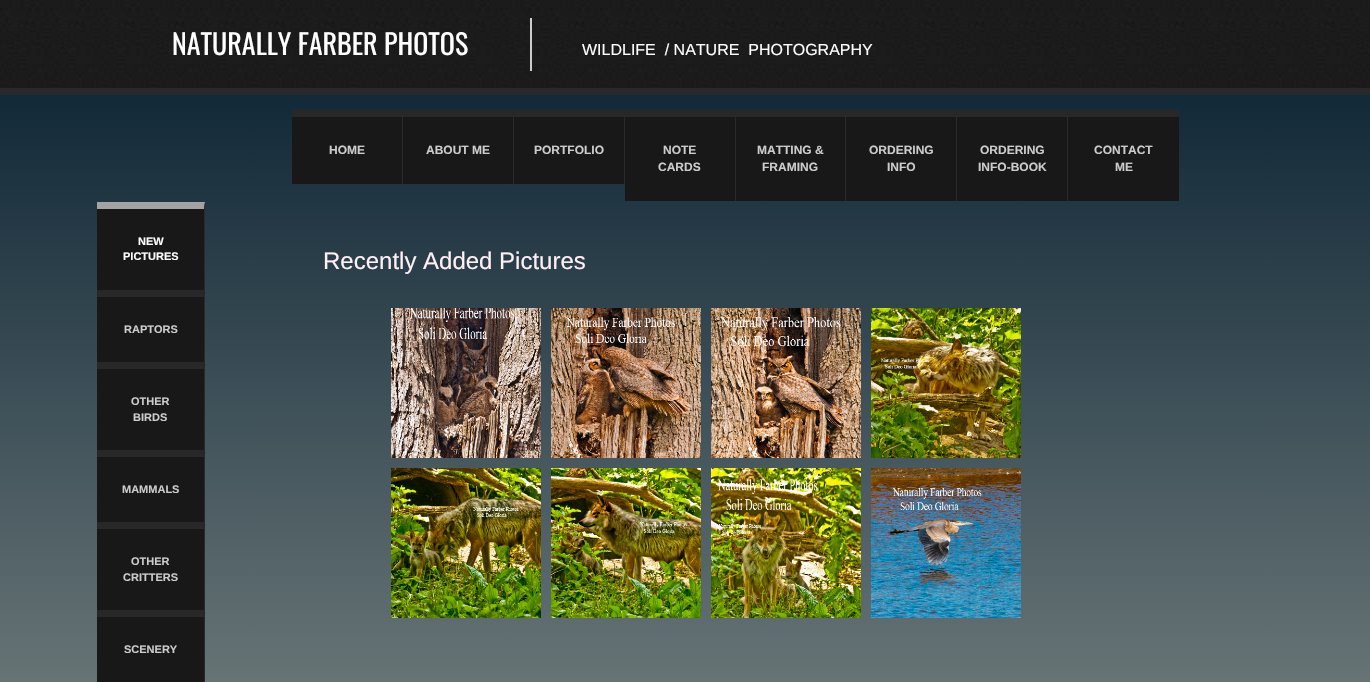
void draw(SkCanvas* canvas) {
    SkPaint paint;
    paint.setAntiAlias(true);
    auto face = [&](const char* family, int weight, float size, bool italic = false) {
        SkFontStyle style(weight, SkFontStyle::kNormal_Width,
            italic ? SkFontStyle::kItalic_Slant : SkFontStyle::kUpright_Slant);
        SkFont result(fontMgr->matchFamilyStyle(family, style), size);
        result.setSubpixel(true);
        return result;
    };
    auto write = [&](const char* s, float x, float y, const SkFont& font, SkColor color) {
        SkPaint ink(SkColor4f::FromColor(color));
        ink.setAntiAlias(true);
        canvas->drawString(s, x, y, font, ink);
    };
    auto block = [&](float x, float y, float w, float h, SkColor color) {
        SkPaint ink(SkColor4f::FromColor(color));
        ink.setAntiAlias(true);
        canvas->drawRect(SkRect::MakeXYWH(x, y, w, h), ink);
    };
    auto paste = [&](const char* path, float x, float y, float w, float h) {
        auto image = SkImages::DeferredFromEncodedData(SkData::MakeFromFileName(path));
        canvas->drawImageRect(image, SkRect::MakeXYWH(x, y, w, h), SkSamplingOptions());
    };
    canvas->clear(SK_ColorWHITE);
    paste("pic1.png", 0, 0, 1370, 682);
    auto kFont1 = face("Oswald", 400, 28);
    write("NATURALLY FARBER PHOTOS", 172, 55, kFont1, SK_ColorWHITE);
    block(530, 18, 2, 53, SkColorSetRGB(204, 204, 204));
    auto kFont2 = face("Liberation Sans", 400, 16);
    write("WILDLIFE  / NATURE  PHOTOGRAPHY", 582, 55, kFont2, SK_ColorWHITE);
    block(292, 110, 333, 74, SkColorSetRGB(24, 24, 24));
    paint.setColor(SkColorSetRGB(40, 40, 40));
    canvas->drawPath(SkPathBuilder().moveTo(292, 110).lineTo(403, 110).lineTo(402, 117).lineTo(292, 117).close().detach(), paint);
    paint.setColor(SkColorSetRGB(42, 42, 42));
    canvas->drawPath(SkPathBuilder().moveTo(403, 110).lineTo(403, 184).lineTo(402, 184).lineTo(402, 117).close().detach(), paint);
    auto kFont3 = face("Liberation Sans", 700, 12);
    write("HOME", 329, 154, kFont3, SkColorSetRGB(204, 204, 204));
    paint.setColor(SkColorSetRGB(40, 40, 40));
    canvas->drawPath(SkPathBuilder().moveTo(403, 110).lineTo(514, 110).lineTo(513, 117).lineTo(403, 117).close().detach(), paint);
    paint.setColor(SkColorSetRGB(42, 42, 42));
    canvas->drawPath(SkPathBuilder().moveTo(514, 110).lineTo(514, 184).lineTo(513, 184).lineTo(513, 117).close().detach(), paint);
    write("ABOUT ME", 426, 154, kFont3, SkColorSetRGB(204, 204, 204));
    paint.setColor(SkColorSetRGB(40, 40, 40));
    canvas->drawPath(SkPathBuilder().moveTo(514, 110).lineTo(625, 110).lineTo(624, 117).lineTo(514, 117).close().detach(), paint);
    paint.setColor(SkColorSetRGB(42, 42, 42));
    canvas->drawPath(SkPathBuilder().moveTo(625, 110).lineTo(625, 184).lineTo(624, 184).lineTo(624, 117).close().detach(), paint);
    write("PORTFOLIO", 534, 154, kFont3, SkColorSetRGB(204, 204, 204));
    block(625, 110, 443, 91, SkColorSetRGB(24, 24, 24));
    paint.setColor(SkColorSetRGB(40, 40, 40));
    canvas->drawPath(SkPathBuilder().moveTo(625, 110).lineTo(736, 110).lineTo(735, 117).lineTo(625, 117).close().detach(), paint);
    paint.setColor(SkColorSetRGB(42, 42, 42));
    canvas->drawPath(SkPathBuilder().moveTo(736, 110).lineTo(736, 201).lineTo(735, 201).lineTo(735, 117).close().detach(), paint);
    write("NOTE", 663, 154, kFont3, SkColorSetRGB(204, 204, 204));
    write("CARDS", 658, 171, kFont3, SkColorSetRGB(204, 204, 204));
    paint.setColor(SkColorSetRGB(40, 40, 40));
    canvas->drawPath(SkPathBuilder().moveTo(736, 110).lineTo(846, 110).lineTo(845, 117).lineTo(736, 117).close().detach(), paint);
    paint.setColor(SkColorSetRGB(42, 42, 42));
    canvas->drawPath(SkPathBuilder().moveTo(846, 110).lineTo(846, 201).lineTo(845, 201).lineTo(845, 117).close().detach(), paint);
    write("MATTING &", 757, 154, kFont3, SkColorSetRGB(204, 204, 204));
    write("FRAMING", 762, 171, kFont3, SkColorSetRGB(204, 204, 204));
    paint.setColor(SkColorSetRGB(40, 40, 40));
    canvas->drawPath(SkPathBuilder().moveTo(846, 110).lineTo(957, 110).lineTo(956, 117).lineTo(846, 117).close().detach(), paint);
    paint.setColor(SkColorSetRGB(42, 42, 42));
    canvas->drawPath(SkPathBuilder().moveTo(957, 110).lineTo(957, 201).lineTo(956, 201).lineTo(956, 117).close().detach(), paint);
    write("ORDERING", 869, 154, kFont3, SkColorSetRGB(204, 204, 204));
    write("INFO", 887, 171, kFont3, SkColorSetRGB(204, 204, 204));
    paint.setColor(SkColorSetRGB(40, 40, 40));
    canvas->drawPath(SkPathBuilder().moveTo(957, 110).lineTo(1068, 110).lineTo(1067, 117).lineTo(957, 117).close().detach(), paint);
    paint.setColor(SkColorSetRGB(42, 42, 42));
    canvas->drawPath(SkPathBuilder().moveTo(1068, 110).lineTo(1068, 201).lineTo(1067, 201).lineTo(1067, 117).close().detach(), paint);
    write("ORDERING", 980, 154, kFont3, SkColorSetRGB(204, 204, 204));
    write("INFO-BOOK", 978, 171, kFont3, SkColorSetRGB(204, 204, 204));
    block(1068, 117, 111, 84, SkColorSetRGB(24, 24, 24));
    block(1068, 110, 111, 7, SkColorSetRGB(40, 40, 40));
    write("CONTACT", 1094, 154, kFont3, SkColorSetRGB(204, 204, 204));
    write("ME", 1115, 171, kFont3, SkColorSetRGB(204, 204, 204));
    block(97, 202, 108, 480, SkColorSetRGB(24, 24, 24));
    paint.setColor(SkColorSetRGB(163, 163, 163));
    canvas->drawPath(SkPathBuilder().moveTo(97, 202).lineTo(205, 202).lineTo(204, 209).lineTo(97, 209).close().detach(), paint);
    paint.setColor(SkColorSetRGB(42, 42, 42));
    canvas->drawPath(SkPathBuilder().moveTo(205, 202).lineTo(205, 290).lineTo(204, 290).lineTo(204, 209).close().detach(), paint);
    auto kFont4 = face("Liberation Sans", 700, 11);
    write("NEW", 138, 245, kFont4, SK_ColorWHITE);
    write("PICTURES", 123, 260, kFont4, SK_ColorWHITE);
    paint.setColor(SkColorSetRGB(40, 40, 40));
    canvas->drawPath(SkPathBuilder().moveTo(97, 290).lineTo(205, 290).lineTo(204, 297).lineTo(97, 297).close().detach(), paint);
    paint.setColor(SkColorSetRGB(42, 42, 42));
    canvas->drawPath(SkPathBuilder().moveTo(205, 290).lineTo(205, 362).lineTo(204, 362).lineTo(204, 297).close().detach(), paint);
    write("RAPTORS", 124, 333, kFont4, SkColorSetRGB(204, 204, 204));
    paint.setColor(SkColorSetRGB(40, 40, 40));
    canvas->drawPath(SkPathBuilder().moveTo(97, 362).lineTo(205, 362).lineTo(204, 369).lineTo(97, 369).close().detach(), paint);
    paint.setColor(SkColorSetRGB(42, 42, 42));
    canvas->drawPath(SkPathBuilder().moveTo(205, 362).lineTo(205, 450).lineTo(204, 450).lineTo(204, 369).close().detach(), paint);
    write("OTHER", 131, 405, kFont4, SkColorSetRGB(204, 204, 204));
    write("BIRDS", 133, 421, kFont4, SkColorSetRGB(204, 204, 204));
    paint.setColor(SkColorSetRGB(40, 40, 40));
    canvas->drawPath(SkPathBuilder().moveTo(97, 450).lineTo(205, 450).lineTo(204, 457).lineTo(97, 457).close().detach(), paint);
    paint.setColor(SkColorSetRGB(42, 42, 42));
    canvas->drawPath(SkPathBuilder().moveTo(205, 450).lineTo(205, 522).lineTo(204, 522).lineTo(204, 457).close().detach(), paint);
    write("MAMMALS", 122, 493, kFont4, SkColorSetRGB(204, 204, 204));
    paint.setColor(SkColorSetRGB(40, 40, 40));
    canvas->drawPath(SkPathBuilder().moveTo(97, 522).lineTo(205, 522).lineTo(204, 529).lineTo(97, 529).close().detach(), paint);
    paint.setColor(SkColorSetRGB(42, 42, 42));
    canvas->drawPath(SkPathBuilder().moveTo(205, 522).lineTo(205, 610).lineTo(204, 610).lineTo(204, 529).close().detach(), paint);
    write("OTHER", 131, 565, kFont4, SkColorSetRGB(204, 204, 204));
    write("CRITTERS", 123, 581, kFont4, SkColorSetRGB(204, 204, 204));
    paint.setColor(SkColorSetRGB(40, 40, 40));
    canvas->drawPath(SkPathBuilder().moveTo(97, 610).lineTo(205, 610).lineTo(204, 617).lineTo(97, 617).close().detach(), paint);
    paint.setColor(SkColorSetRGB(42, 42, 42));
    canvas->drawPath(SkPathBuilder().moveTo(205, 610).lineTo(205, 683).lineTo(204, 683).lineTo(204, 617).close().detach(), paint);
    write("SCENERY", 124, 653, kFont4, SkColorSetRGB(204, 204, 204));
    auto kFont5 = face("Liberation Sans", 400, 24);
    write("Recently Added Pictures", 323, 269, kFont5, SkColorSetRGB(255, 240, 245));
    paste("pic2.png", 391, 308, 150, 150);
    paste("pic3.png", 551, 308, 150, 150);
    paste("pic4.png", 711, 308, 150, 150);
    paste("pic5.png", 871, 308, 150, 150);
    paste("pic6.png", 391, 468, 150, 150);
    paste("pic7.png", 551, 468, 150, 150);
    paste("pic8.png", 711, 468, 150, 150);
    paste("pic9.png", 871, 468, 150, 150);
}
